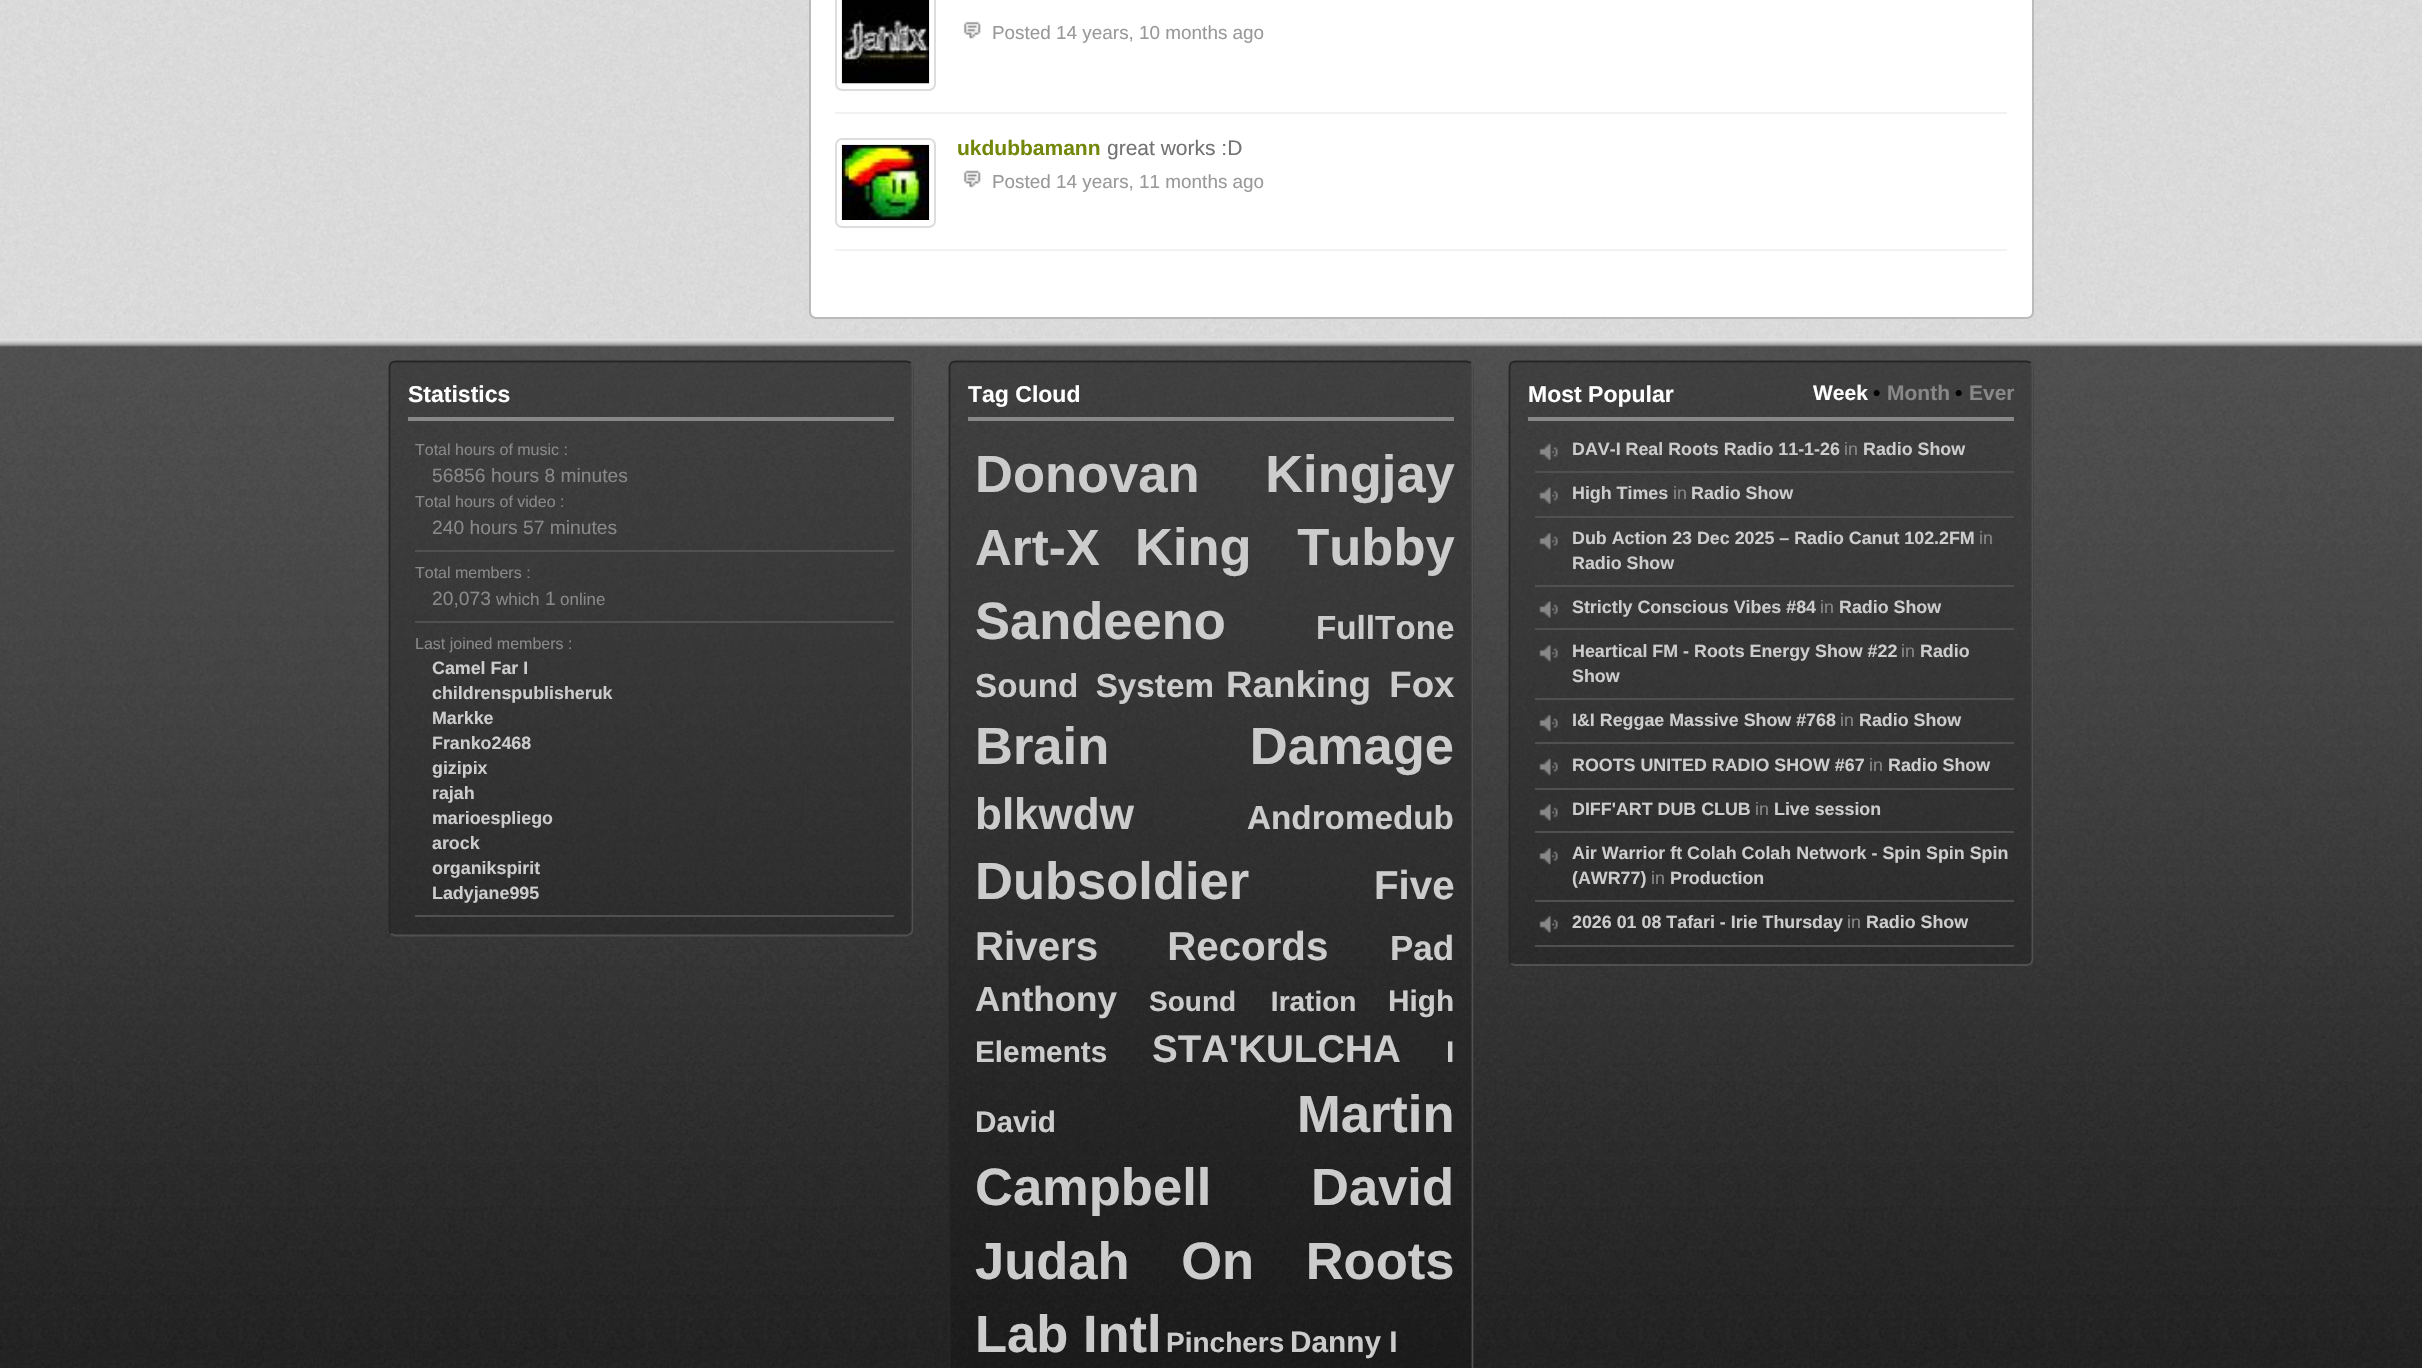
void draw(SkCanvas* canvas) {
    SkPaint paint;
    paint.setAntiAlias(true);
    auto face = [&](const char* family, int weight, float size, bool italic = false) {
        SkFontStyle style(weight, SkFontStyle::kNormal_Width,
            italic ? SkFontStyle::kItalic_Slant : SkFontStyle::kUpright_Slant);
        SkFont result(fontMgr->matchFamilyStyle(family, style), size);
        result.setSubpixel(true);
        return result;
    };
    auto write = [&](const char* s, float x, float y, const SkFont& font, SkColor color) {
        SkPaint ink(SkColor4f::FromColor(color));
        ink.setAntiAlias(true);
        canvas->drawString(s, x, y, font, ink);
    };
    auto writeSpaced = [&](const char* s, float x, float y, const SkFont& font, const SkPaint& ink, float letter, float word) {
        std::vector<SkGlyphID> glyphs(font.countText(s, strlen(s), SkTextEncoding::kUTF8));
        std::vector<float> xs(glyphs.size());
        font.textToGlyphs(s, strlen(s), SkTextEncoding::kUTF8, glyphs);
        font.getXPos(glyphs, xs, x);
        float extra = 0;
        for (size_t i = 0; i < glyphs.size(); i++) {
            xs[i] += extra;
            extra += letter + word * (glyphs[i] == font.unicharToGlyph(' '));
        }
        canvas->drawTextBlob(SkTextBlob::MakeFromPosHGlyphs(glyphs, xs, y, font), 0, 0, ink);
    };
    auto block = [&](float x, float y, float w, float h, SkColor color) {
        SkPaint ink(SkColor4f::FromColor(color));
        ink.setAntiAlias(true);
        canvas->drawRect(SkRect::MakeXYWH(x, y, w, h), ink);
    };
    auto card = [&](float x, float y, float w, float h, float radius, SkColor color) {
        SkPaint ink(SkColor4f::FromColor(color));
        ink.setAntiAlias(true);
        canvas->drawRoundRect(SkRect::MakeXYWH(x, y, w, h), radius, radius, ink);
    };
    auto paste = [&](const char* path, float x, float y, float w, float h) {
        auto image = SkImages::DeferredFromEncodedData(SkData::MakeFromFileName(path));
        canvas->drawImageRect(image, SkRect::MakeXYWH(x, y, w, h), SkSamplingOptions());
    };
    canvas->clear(SK_ColorWHITE);
    paste("pic1.png", 0, 0, 2422, 339);
    paint.setColor(SK_ColorWHITE);
    canvas->drawRoundRect(SkRect::MakeXYWH(810, -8, 1223, 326), 6, 6, paint);
    paint.setStyle(SkPaint::kStroke_Style);
    paint.setStrokeWidth(2);
    paint.setColor(SkColorSetRGB(186, 186, 186));
    canvas->drawRoundRect(SkRect::MakeXYWH(810, -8, 1223, 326), 6, 6, paint);
    block(835, 112, 1172, 2, SkColorSetRGB(242, 242, 242));
    paint.setColor(SkColorSetRGB(221, 221, 221));
    canvas->drawRoundRect(SkRect::MakeXYWH(836, -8, 99, 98), 6, 6, paint);
    paste("pic2.png", 841, 0, 89, 84);
    paste("pic3.png", 963, 21, 18, 18);
    auto kFont1 = face("Liberation Sans", 400, 18.9f);
    write("Posted 14 years, 10 months ago", 992, 39, kFont1, SkColorSetRGB(153, 153, 153));
    block(835, 249, 1172, 2, SkColorSetRGB(242, 242, 242));
    canvas->drawRoundRect(SkRect::MakeXYWH(836, 139, 99, 88), 6, 6, paint);
    paste("pic4.png", 841, 144, 89, 76);
    auto kFont2 = face("Liberation Sans", 700, 21);
    write("ukdubbamann", 957, 155, kFont2, SkColorSetRGB(115, 136, 10));
    auto kFont3 = face("Liberation Sans", 400, 21);
    write("great works :D", 1107, 155, kFont3, SkColorSetRGB(114, 114, 114));
    paste("pic5.png", 963, 170, 18, 18);
    write("Posted 14 years, 11 months ago", 992, 188, kFont1, SkColorSetRGB(153, 153, 153));
    paste("pic6.png", 0, 339, 2422, 1029);
    card(389, 361, 525, 575, 7, SkColorSetARGB(51, 0, 0, 0));
    paint.setStrokeWidth(1.8f);
    paint.setColor(SkColorSetRGB(80, 80, 80));
    canvas->drawPath(SkPathBuilder().moveTo(911, 363).cubicTo(912, 364.5f, 912.5f, 366, 912.5f, 367.5f).lineTo(912.5f, 929).cubicTo(912.5f, 931, 912, 932.5f, 911, 933.5f).cubicTo(909.5f, 934.5f, 908, 935.5f, 906.5f, 935.5f).lineTo(395.5f, 935.5f).cubicTo(394, 935.5f, 392.5f, 934.5f, 391, 933.5f).detach(), paint);
    paint.setColor(SkColorSetRGB(38, 38, 38));
    canvas->drawPath(SkPathBuilder().moveTo(391, 933.5f).cubicTo(390, 932.5f, 389.5f, 931, 389.5f, 929).lineTo(389.5f, 367.5f).cubicTo(389.5f, 366, 390, 364.5f, 391, 363).cubicTo(392.5f, 362, 394, 361.5f, 395.5f, 361.5f).lineTo(906.5f, 361.5f).cubicTo(908, 361.5f, 909.5f, 362, 911, 363).detach(), paint);
    block(408, 417, 486, 4, SkColorSetRGB(136, 136, 136));
    auto kFont4 = face("Liberation Sans", 700, 23);
    write("Statistics", 408, 402, kFont4, SK_ColorWHITE);
    block(415, 550, 479, 2, SkColorSetRGB(80, 80, 80));
    auto kFont5 = face("Liberation Sans", 400, 16);
    write("Total hours of music :", 415, 455, kFont5, SkColorSetRGB(136, 136, 136));
    auto kFont6 = face("Liberation Sans", 400, 19.25f);
    write("56856 hours 8 minutes", 432, 482, kFont6, SkColorSetRGB(136, 136, 136));
    write("Total hours of video :", 415, 507, kFont5, SkColorSetRGB(136, 136, 136));
    write("240 hours 57 minutes", 432, 534, kFont6, SkColorSetRGB(136, 136, 136));
    block(415, 621, 479, 2, SkColorSetRGB(80, 80, 80));
    write("Total members :", 415, 578, kFont5, SkColorSetRGB(136, 136, 136));
    write("20,073", 432, 605, kFont6, SkColorSetRGB(136, 136, 136));
    auto kFont7 = face("Liberation Sans", 400, 17);
    write("which", 496, 605, kFont7, SkColorSetRGB(136, 136, 136));
    write("1", 545, 605, kFont6, SkColorSetRGB(136, 136, 136));
    write("online", 560, 605, kFont7, SkColorSetRGB(136, 136, 136));
    block(415, 915, 479, 2, SkColorSetRGB(80, 80, 80));
    write("Last joined members :", 415, 649, kFont5, SkColorSetRGB(136, 136, 136));
    auto kFont8 = face("Liberation Sans", 700, 17.85f);
    write("Camel Far I", 432, 674, kFont8, SkColorSetRGB(204, 204, 204));
    write("childrenspublisheruk", 432, 699, kFont8, SkColorSetRGB(204, 204, 204));
    write("Markke", 432, 724, kFont8, SkColorSetRGB(204, 204, 204));
    write("Franko2468", 432, 749, kFont8, SkColorSetRGB(204, 204, 204));
    write("gizipix", 432, 774, kFont8, SkColorSetRGB(204, 204, 204));
    write("rajah", 432, 799, kFont8, SkColorSetRGB(204, 204, 204));
    write("marioespliego", 432, 824, kFont8, SkColorSetRGB(204, 204, 204));
    write("arock", 432, 849, kFont8, SkColorSetRGB(204, 204, 204));
    write("organikspirit", 432, 874, kFont8, SkColorSetRGB(204, 204, 204));
    write("Ladyjane995", 432, 899, kFont8, SkColorSetRGB(204, 204, 204));
    card(949, 361, 525, 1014, 7, SkColorSetARGB(51, 0, 0, 0));
    paint.setColor(SkColorSetRGB(80, 80, 80));
    canvas->drawPath(SkPathBuilder().moveTo(1471, 363).cubicTo(1472, 364.5f, 1472.5f, 366, 1472.5f, 367.5f).lineTo(1472.5f, 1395).cubicTo(1472.5f, 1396.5f, 1472, 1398, 1471, 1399).cubicTo(1469.5f, 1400, 1468, 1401, 1466.5f, 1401).lineTo(955.5f, 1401).cubicTo(954, 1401, 952.5f, 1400, 951, 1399).detach(), paint);
    paint.setColor(SkColorSetRGB(38, 38, 38));
    canvas->drawPath(SkPathBuilder().moveTo(951, 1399).cubicTo(950, 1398, 949.5f, 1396.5f, 949.5f, 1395).lineTo(949.5f, 367.5f).cubicTo(949.5f, 366, 950, 364.5f, 951, 363).cubicTo(952.5f, 362, 954, 361.5f, 955.5f, 361.5f).lineTo(1466.5f, 361.5f).cubicTo(1468, 361.5f, 1469.5f, 362, 1471, 363).detach(), paint);
    block(968, 417, 486, 4, SkColorSetRGB(136, 136, 136));
    write("Tag Cloud", 968, 402, kFont4, SK_ColorWHITE);
    auto kFont9 = face("Liberation Sans", 700, 52.5f);
    paint.setStyle(SkPaint::kFill_Style);
    paint.setColor(SkColorSetRGB(204, 204, 204));
    writeSpaced("Donovan Kingjay", 975, 492, kFont9, paint, 0, 51);
    auto kFont10 = face("Liberation Sans", 700, 51);
    write("Art-X", 975, 565, kFont10, SkColorSetRGB(204, 204, 204));
    writeSpaced("King Tubby", 1135, 565, kFont9, paint, 0, 31);
    write("Sandeeno", 975, 639, kFont9, SkColorSetRGB(204, 204, 204));
    auto kFont11 = face("Liberation Sans", 700, 33.25f);
    write("FullTone", 1316, 639, kFont11, SkColorSetRGB(204, 204, 204));
    writeSpaced("Sound System", 975, 697, kFont11, paint, 0, 8);
    auto kFont12 = face("Liberation Sans", 700, 36.75f);
    writeSpaced("Ranking Fox", 1226, 697, kFont12, paint, 0, 8);
    writeSpaced("Brain Damage", 975, 764, kFont9, paint, 0, 126);
    auto kFont13 = face("Liberation Sans", 700, 44);
    write("blkwdw", 975, 829, kFont13, SkColorSetRGB(204, 204, 204));
    write("Andromedub", 1247, 829, kFont11, SkColorSetRGB(204, 204, 204));
    write("Dubsoldier", 975, 899, kFont9, SkColorSetRGB(204, 204, 204));
    auto kFont14 = face("Liberation Sans", 700, 40.25f);
    write("Five", 1374, 899, kFont14, SkColorSetRGB(204, 204, 204));
    writeSpaced("Rivers Records", 975, 960, kFont14, paint, 0, 58);
    auto kFont15 = face("Liberation Sans", 700, 35);
    write("Pad", 1390, 960, kFont15, SkColorSetRGB(204, 204, 204));
    write("Anthony", 975, 1011, kFont15, SkColorSetRGB(204, 204, 204));
    auto kFont16 = face("Liberation Sans", 700, 28);
    writeSpaced("Sound Iration", 1149, 1011, kFont16, paint, 0, 27);
    auto kFont17 = face("Liberation Sans", 700, 29.75f);
    write("High", 1388, 1011, kFont17, SkColorSetRGB(204, 204, 204));
    write("Elements", 975, 1062, kFont17, SkColorSetRGB(204, 204, 204));
    auto kFont18 = face("Liberation Sans", 700, 38.5f);
    write("STA'KULCHA", 1152, 1062, kFont18, SkColorSetRGB(204, 204, 204));
    write("I", 1446, 1062, kFont17, SkColorSetRGB(204, 204, 204));
    write("David", 975, 1132, kFont17, SkColorSetRGB(204, 204, 204));
    write("Martin", 1297, 1132, kFont9, SkColorSetRGB(204, 204, 204));
    write("Campbell", 975, 1205, kFont9, SkColorSetRGB(204, 204, 204));
    write("David", 1311, 1205, kFont9, SkColorSetRGB(204, 204, 204));
    writeSpaced("Judah On Roots", 975, 1279, kFont9, paint, 0, 37);
    write("Lab Intl", 975, 1352, kFont9, SkColorSetRGB(204, 204, 204));
    write("Pinchers", 1166, 1352, kFont16, SkColorSetRGB(204, 204, 204));
    write("Danny I", 1290, 1352, kFont17, SkColorSetRGB(204, 204, 204));
    card(1509, 361, 525, 605, 7, SkColorSetARGB(51, 0, 0, 0));
    paint.setStyle(SkPaint::kStroke_Style);
    paint.setColor(SkColorSetRGB(80, 80, 80));
    canvas->drawPath(SkPathBuilder().moveTo(2031, 363).cubicTo(2032, 364.5f, 2032.5f, 366, 2032.5f, 367.5f).lineTo(2032.5f, 959).cubicTo(2032.5f, 960.5f, 2032, 962, 2031, 963.5f).cubicTo(2029.5f, 964.5f, 2028, 965, 2026.5f, 965).lineTo(1515.5f, 965).cubicTo(1514, 965, 1512.5f, 964.5f, 1511, 963.5f).detach(), paint);
    paint.setColor(SkColorSetRGB(38, 38, 38));
    canvas->drawPath(SkPathBuilder().moveTo(1511, 963.5f).cubicTo(1510, 962, 1509.5f, 960.5f, 1509.5f, 959).lineTo(1509.5f, 367.5f).cubicTo(1509.5f, 366, 1510, 364.5f, 1511, 363).cubicTo(1512.5f, 362, 1514, 361.5f, 1515.5f, 361.5f).lineTo(2026.5f, 361.5f).cubicTo(2028, 361.5f, 2029.5f, 362, 2031, 363).detach(), paint);
    block(1528, 417, 486, 4, SkColorSetRGB(136, 136, 136));
    write("Most Popular", 1528, 402, kFont4, SK_ColorWHITE);
    write("Week", 1813, 400, kFont2, SK_ColorWHITE);
    write("•", 1873, 400, kFont2, SK_ColorBLACK);
    write("Month", 1887, 400, kFont2, SkColorSetRGB(136, 136, 136));
    write("•", 1955, 400, kFont2, SK_ColorBLACK);
    write("Ever", 1969, 400, kFont2, SkColorSetRGB(136, 136, 136));
    block(1535, 471, 479, 2, SkColorSetRGB(80, 80, 80));
    paste("pic7.png", 1539, 443, 19, 18);
    write("DAV-I Real Roots Radio 11-1-26", 1572, 455, kFont8, SkColorSetRGB(204, 204, 204));
    auto kFont19 = face("Liberation Sans", 400, 17.85f);
    write("in", 1844, 455, kFont19, SkColorSetRGB(136, 136, 136));
    write("Radio Show", 1863, 455, kFont8, SkColorSetRGB(204, 204, 204));
    block(1535, 516, 479, 2, SkColorSetRGB(80, 80, 80));
    paste("pic8.png", 1539, 487, 19, 17);
    write("High Times", 1572, 499, kFont8, SkColorSetRGB(204, 204, 204));
    write("in", 1673, 499, kFont19, SkColorSetRGB(136, 136, 136));
    write("Radio Show", 1691, 499, kFont8, SkColorSetRGB(204, 204, 204));
    block(1535, 585, 479, 2, SkColorSetRGB(80, 80, 80));
    paste("pic9.png", 1539, 533, 19, 17);
    write("Dub Action 23 Dec 2025 – Radio Canut 102.2FM", 1572, 544, kFont8, SkColorSetRGB(204, 204, 204));
    write("in", 1979, 544, kFont19, SkColorSetRGB(136, 136, 136));
    write("Radio Show", 1572, 569, kFont8, SkColorSetRGB(204, 204, 204));
    block(1535, 628, 479, 2, SkColorSetRGB(80, 80, 80));
    paste("pic10.png", 1539, 601, 19, 17);
    write("Strictly Conscious Vibes #84", 1572, 613, kFont8, SkColorSetRGB(204, 204, 204));
    write("in", 1820, 613, kFont19, SkColorSetRGB(136, 136, 136));
    write("Radio Show", 1839, 613, kFont8, SkColorSetRGB(204, 204, 204));
    block(1535, 698, 479, 2, SkColorSetRGB(80, 80, 80));
    paste("pic11.png", 1539, 645, 19, 17);
    write("Heartical FM - Roots Energy Show #22", 1572, 657, kFont8, SkColorSetRGB(204, 204, 204));
    write("in", 1901, 657, kFont19, SkColorSetRGB(136, 136, 136));
    write("Radio", 1920, 657, kFont8, SkColorSetRGB(204, 204, 204));
    write("Show", 1572, 682, kFont8, SkColorSetRGB(204, 204, 204));
    block(1535, 742, 479, 2, SkColorSetRGB(80, 80, 80));
    paste("pic12.png", 1539, 714, 19, 18);
    write("I&I Reggae Massive Show #768", 1572, 726, kFont8, SkColorSetRGB(204, 204, 204));
    write("in", 1840, 726, kFont19, SkColorSetRGB(136, 136, 136));
    write("Radio Show", 1859, 726, kFont8, SkColorSetRGB(204, 204, 204));
    block(1535, 788, 479, 2, SkColorSetRGB(80, 80, 80));
    paste("pic13.png", 1539, 758, 19, 18);
    write("ROOTS UNITED RADIO SHOW #67", 1572, 771, kFont8, SkColorSetRGB(204, 204, 204));
    write("in", 1869, 771, kFont19, SkColorSetRGB(136, 136, 136));
    write("Radio Show", 1888, 771, kFont8, SkColorSetRGB(204, 204, 204));
    block(1535, 831, 479, 2, SkColorSetRGB(80, 80, 80));
    paste("pic14.png", 1539, 804, 19, 17);
    write("DIFF'ART DUB CLUB", 1572, 815, kFont8, SkColorSetRGB(204, 204, 204));
    write("in", 1755, 815, kFont19, SkColorSetRGB(136, 136, 136));
    write("Live session", 1774, 815, kFont8, SkColorSetRGB(204, 204, 204));
    block(1535, 900, 479, 2, SkColorSetRGB(80, 80, 80));
    paste("pic15.png", 1539, 847, 19, 18);
    write("Air Warrior ft Colah Colah Network - Spin Spin Spin", 1572, 859, kFont8, SkColorSetRGB(204, 204, 204));
    write("(AWR77)", 1572, 884, kFont8, SkColorSetRGB(204, 204, 204));
    write("in", 1651, 884, kFont19, SkColorSetRGB(136, 136, 136));
    write("Production", 1670, 884, kFont8, SkColorSetRGB(204, 204, 204));
    block(1535, 945, 479, 2, SkColorSetRGB(80, 80, 80));
    paste("pic16.png", 1539, 916, 19, 17);
    write("2026 01 08 Tafari - Irie Thursday", 1572, 928, kFont8, SkColorSetRGB(204, 204, 204));
    write("in", 1847, 928, kFont19, SkColorSetRGB(136, 136, 136));
    write("Radio Show", 1866, 928, kFont8, SkColorSetRGB(204, 204, 204));
}
